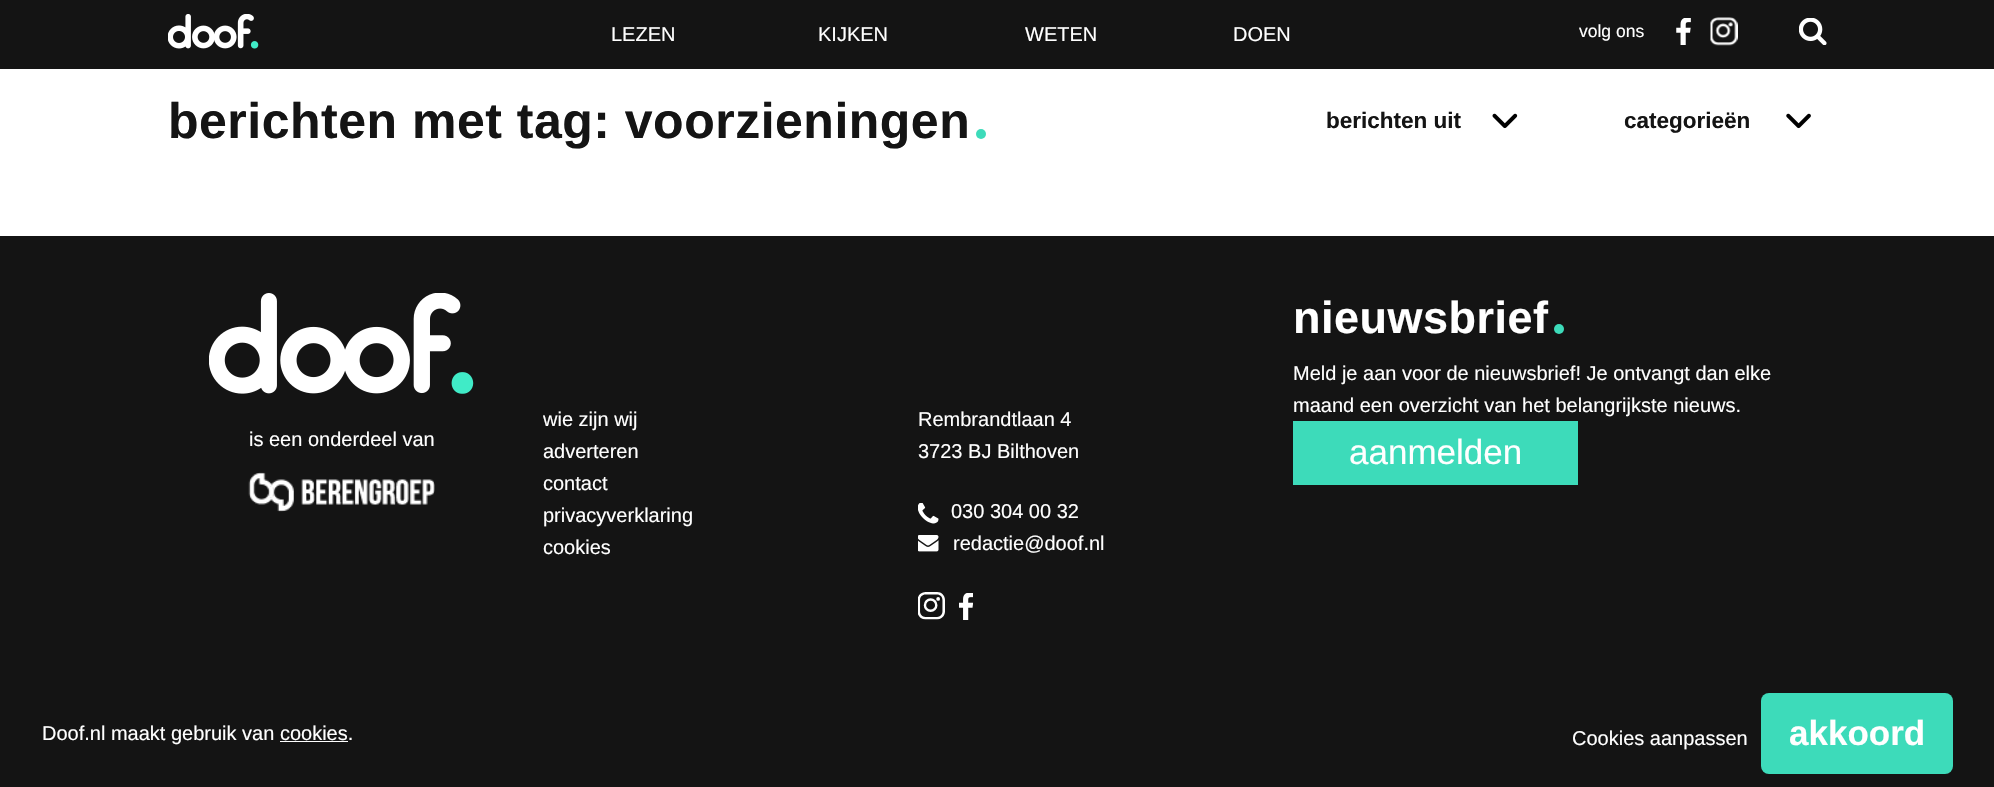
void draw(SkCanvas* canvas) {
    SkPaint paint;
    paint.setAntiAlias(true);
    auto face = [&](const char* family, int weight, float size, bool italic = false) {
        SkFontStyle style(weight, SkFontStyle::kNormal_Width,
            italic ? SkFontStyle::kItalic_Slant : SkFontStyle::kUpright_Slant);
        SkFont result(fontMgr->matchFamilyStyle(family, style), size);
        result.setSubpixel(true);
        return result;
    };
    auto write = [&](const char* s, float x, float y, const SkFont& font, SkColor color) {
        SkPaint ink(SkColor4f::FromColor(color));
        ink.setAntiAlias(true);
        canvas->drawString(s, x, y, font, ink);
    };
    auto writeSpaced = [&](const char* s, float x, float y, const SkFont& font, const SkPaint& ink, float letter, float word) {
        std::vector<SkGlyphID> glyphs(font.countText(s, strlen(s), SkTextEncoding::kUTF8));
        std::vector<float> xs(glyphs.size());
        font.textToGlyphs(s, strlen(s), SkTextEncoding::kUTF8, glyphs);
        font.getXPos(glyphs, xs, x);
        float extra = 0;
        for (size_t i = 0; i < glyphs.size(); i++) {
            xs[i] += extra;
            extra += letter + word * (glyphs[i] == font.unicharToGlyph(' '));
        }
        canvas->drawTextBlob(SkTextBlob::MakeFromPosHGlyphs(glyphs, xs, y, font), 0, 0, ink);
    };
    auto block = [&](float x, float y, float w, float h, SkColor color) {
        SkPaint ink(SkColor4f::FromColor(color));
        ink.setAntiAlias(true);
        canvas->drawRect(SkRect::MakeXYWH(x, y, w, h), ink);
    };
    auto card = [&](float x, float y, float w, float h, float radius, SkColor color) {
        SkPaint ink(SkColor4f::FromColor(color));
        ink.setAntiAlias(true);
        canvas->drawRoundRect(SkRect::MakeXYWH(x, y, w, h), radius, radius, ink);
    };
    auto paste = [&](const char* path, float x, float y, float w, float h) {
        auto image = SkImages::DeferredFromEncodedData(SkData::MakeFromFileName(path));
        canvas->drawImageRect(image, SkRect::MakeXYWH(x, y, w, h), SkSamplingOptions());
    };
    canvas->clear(SK_ColorWHITE);
    block(0, 0, 1994, 69, SkColorSetRGB(20, 20, 20));
    paste("pic1.png", 168, 14, 91, 35);
    auto kFont1 = face("Liberation Sans", 400, 20);
    write("LEZEN", 611, 41, kFont1, SK_ColorWHITE);
    write("KIJKEN", 818, 41, kFont1, SK_ColorWHITE);
    write("WETEN", 1025, 41, kFont1, SK_ColorWHITE);
    write("DOEN", 1233, 41, kFont1, SK_ColorWHITE);
    auto kFont2 = face("Liberation Sans", 400, 17.5f);
    write("volg ons", 1579, 37, kFont2, SK_ColorWHITE);
    paste("pic2.png", 1676, 18, 15, 27);
    paste("pic3.png", 1710, 17, 28, 29);
    paste("pic4.png", 1799, 18, 28, 27);
    auto kFont3 = face("Liberation Sans", 700, 50);
    paint.setColor(SkColorSetRGB(20, 20, 20));
    writeSpaced("berichten met tag: voorzieningen", 168, 138, kFont3, paint, 0.5f, 0);
    paint.setColor(SkColorSetRGB(61, 219, 186));
    canvas->drawCircle(981, 134, 5, paint);
    paste("pic5.png", 1492, 113, 26, 16);
    auto kFont4 = face("Liberation Sans", 700, 22.5f);
    write("berichten uit", 1326, 128, kFont4, SkColorSetRGB(20, 20, 20));
    paste("pic6.png", 1786, 113, 25, 16);
    write("categorieën", 1624, 128, kFont4, SkColorSetRGB(20, 20, 20));
    block(0, 236, 1994, 551, SkColorSetRGB(20, 20, 20));
    auto kFont5 = face("Liberation Sans", 700, 45);
    paint.setColor(SK_ColorWHITE);
    writeSpaced("nieuwsbrief", 1293, 333, kFont5, paint, 0.5f, 0);
    paint.setColor(SkColorSetRGB(61, 219, 186));
    canvas->drawCircle(1559, 329, 5, paint);
    write("Meld je aan voor de nieuwsbrief! Je ontvangt dan elke", 1293, 380, kFont1, SK_ColorWHITE);
    write("maand een overzicht van het belangrijkste nieuws.", 1293, 412, kFont1, SK_ColorWHITE);
    block(1293, 421, 285, 64, SkColorSetRGB(61, 219, 186));
    auto kFont6 = face("Liberation Sans", 400, 35);
    write("aanmelden", 1349, 464, kFont6, SK_ColorWHITE);
    paste("pic7.png", 209, 293, 265, 101);
    write("is een onderdeel van", 249, 446, kFont1, SK_ColorWHITE);
    paste("pic8.png", 248, 472, 187, 40);
    write("wie zijn wij", 543, 426, kFont1, SK_ColorWHITE);
    write("adverteren", 543, 458, kFont1, SK_ColorWHITE);
    write("contact", 543, 490, kFont1, SK_ColorWHITE);
    write("privacyverklaring", 543, 522, kFont1, SK_ColorWHITE);
    write("cookies", 543, 554, kFont1, SK_ColorWHITE);
    write("Rembrandtlaan 4", 918, 426, kFont1, SK_ColorWHITE);
    write("3723 BJ Bilthoven", 918, 458, kFont1, SK_ColorWHITE);
    paste("pic9.png", 918, 503, 21, 21);
    write("030 304 00 32", 951, 518, kFont1, SK_ColorWHITE);
    paste("pic10.png", 918, 535, 21, 17);
    write("redactie@doof.nl", 953, 550, kFont1, SK_ColorWHITE);
    paste("pic11.png", 918, 592, 27, 28);
    paste("pic12.png", 959, 593, 14, 27);
    write("Doof.nl maakt gebruik van cookies.", 42, 740, kFont1, SK_ColorWHITE);
    block(280, 741, 68, 1, SK_ColorWHITE);
    write("Cookies aanpassen", 1572, 745, kFont1, SK_ColorWHITE);
    card(1761, 693, 192, 81, 8, SkColorSetRGB(61, 219, 186));
    auto kFont7 = face("Liberation Sans", 700, 35);
    write("akkoord", 1789, 745, kFont7, SK_ColorWHITE);
}
